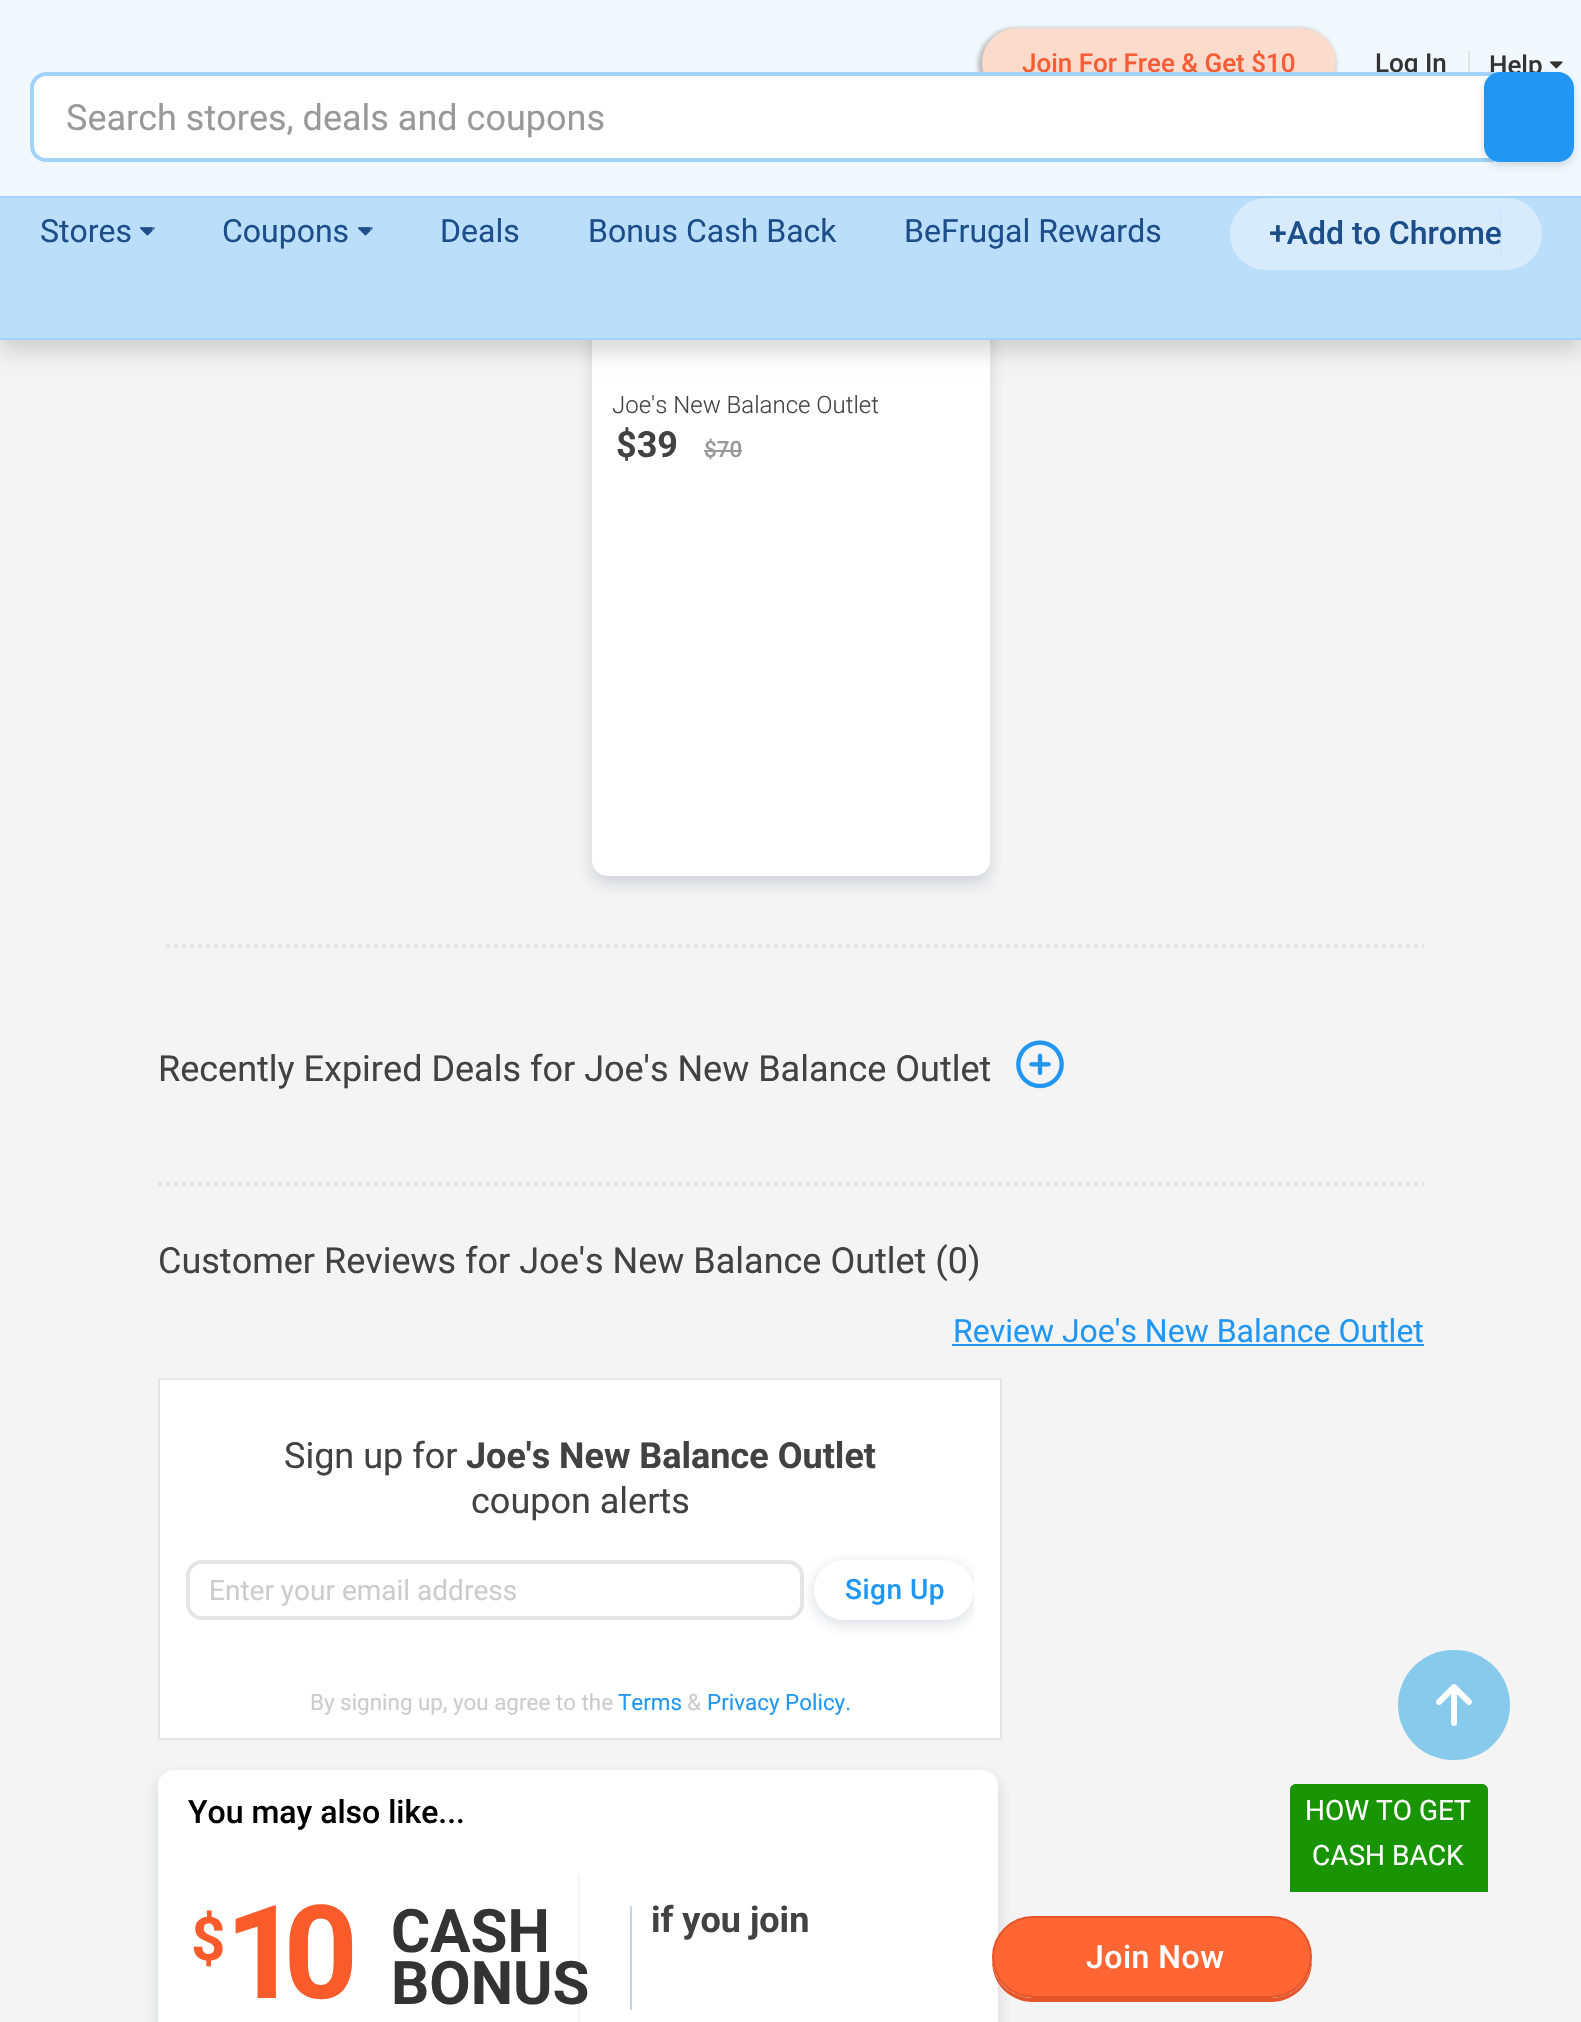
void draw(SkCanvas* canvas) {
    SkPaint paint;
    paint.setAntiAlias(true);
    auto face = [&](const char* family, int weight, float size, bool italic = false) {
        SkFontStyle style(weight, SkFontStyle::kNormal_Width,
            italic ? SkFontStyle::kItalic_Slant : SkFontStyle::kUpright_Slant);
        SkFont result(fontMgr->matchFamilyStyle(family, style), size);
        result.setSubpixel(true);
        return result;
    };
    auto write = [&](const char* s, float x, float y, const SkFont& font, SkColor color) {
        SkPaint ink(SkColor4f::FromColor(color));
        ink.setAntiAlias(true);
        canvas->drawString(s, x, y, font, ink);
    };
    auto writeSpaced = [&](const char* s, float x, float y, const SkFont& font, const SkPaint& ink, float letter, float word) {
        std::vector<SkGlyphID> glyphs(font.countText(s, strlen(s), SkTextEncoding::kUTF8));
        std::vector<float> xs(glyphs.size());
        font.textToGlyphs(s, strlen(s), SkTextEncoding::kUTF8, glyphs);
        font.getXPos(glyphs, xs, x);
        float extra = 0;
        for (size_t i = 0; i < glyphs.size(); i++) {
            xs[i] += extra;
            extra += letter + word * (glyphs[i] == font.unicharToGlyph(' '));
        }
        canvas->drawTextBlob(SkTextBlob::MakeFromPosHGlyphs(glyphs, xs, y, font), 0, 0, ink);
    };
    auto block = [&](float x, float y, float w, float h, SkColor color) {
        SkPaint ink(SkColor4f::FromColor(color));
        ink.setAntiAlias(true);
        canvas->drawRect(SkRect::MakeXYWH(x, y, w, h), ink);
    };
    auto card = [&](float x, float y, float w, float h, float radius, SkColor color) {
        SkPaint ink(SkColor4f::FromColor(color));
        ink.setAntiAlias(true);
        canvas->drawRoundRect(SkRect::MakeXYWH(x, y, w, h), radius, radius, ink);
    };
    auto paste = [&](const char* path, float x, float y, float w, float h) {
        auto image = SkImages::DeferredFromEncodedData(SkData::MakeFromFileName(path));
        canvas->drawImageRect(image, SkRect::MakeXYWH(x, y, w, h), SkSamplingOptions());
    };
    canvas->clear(SkColorSetRGB(244, 244, 244));
    paint.setColor(SkColorSetARGB(38, 10, 22, 70));
    paint.setMaskFilter(SkMaskFilter::MakeBlur(kNormal_SkBlurStyle, 8));
    canvas->drawRoundRect(SkRect::MakeXYWH(592, 124, 398, 760), 16, 16, paint);
    paint.setMaskFilter(nullptr);
    card(592, 116, 398, 760, 16, SK_ColorWHITE);
    paint.setColor(SkColorSetARGB(38, 0, 0, 0));
    paint.setMaskFilter(SkMaskFilter::MakeBlur(kNormal_SkBlurStyle, 10));
    canvas->drawRect(SkRect::MakeXYWH(0, 12, 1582, 340), paint);
    paint.setMaskFilter(nullptr);
    block(0, 198, 1581, 140, SkColorSetRGB(187, 222, 251));
    block(0, 338, 1581, 2, SkColorSetRGB(163, 210, 250));
    block(0, 0, 1581, 196, SkColorSetRGB(241, 249, 255));
    block(0, 196, 1581, 2, SkColorSetRGB(163, 210, 250));
    paint.setColor(SkColorSetRGB(187, 187, 187));
    paint.setMaskFilter(SkMaskFilter::MakeBlur(kNormal_SkBlurStyle, 2));
    canvas->drawRoundRect(SkRect::MakeXYWH(978, 28, 358, 74), 37, 37, paint);
    paint.setMaskFilter(nullptr);
    card(982, 28, 354, 70, 35, SkColorSetRGB(251, 220, 204));
    auto kFont1 = face("Roboto", 500, 26);
    write("Join For Free & Get $10", 1022, 72, kFont1, SkColorSetRGB(247, 92, 54));
    block(1468, 50, 2, 26, SkColorSetRGB(229, 229, 232));
    write("Log In", 1375, 72, kFont1, SkColorSetRGB(51, 51, 51));
    write("Help", 1489, 74, kFont1, SkColorSetRGB(51, 51, 51));
    paste("pic1.png", 1550, 61, 13, 8);
    paint.setColor(SK_ColorWHITE);
    canvas->drawPath(SkPathBuilder().moveTo(46, 74).lineTo(1492, 74).lineTo(1492, 160).lineTo(46, 160).cubicTo(38.5f, 160, 32, 153.5f, 32, 146).lineTo(32, 88).cubicTo(32, 80.5f, 38.5f, 74, 46, 74).close().detach(), paint);
    paint.setStyle(SkPaint::kStroke_Style);
    paint.setStrokeWidth(4);
    paint.setColor(SkColorSetRGB(163, 210, 250));
    canvas->drawPath(SkPathBuilder().moveTo(46, 74).lineTo(1492, 74).lineTo(1492, 160).lineTo(46, 160).cubicTo(38.5f, 160, 32, 153.5f, 32, 146).lineTo(32, 88).cubicTo(32, 80.5f, 38.5f, 74, 46, 74).close().detach(), paint);
    auto kFont2 = face("Roboto", 400, 36);
    write("Search stores, deals and coupons", 66, 130, kFont2, SkColorSetRGB(153, 153, 153));
    paint.setStyle(SkPaint::kFill_Style);
    paint.setColor(SkColorSetARGB(38, 10, 22, 70));
    paint.setMaskFilter(SkMaskFilter::MakeBlur(kNormal_SkBlurStyle, 4));
    canvas->drawRoundRect(SkRect::MakeXYWH(1484, 76, 90, 90), 16, 16, paint);
    paint.setMaskFilter(nullptr);
    card(1484, 72, 90, 90, 16, SkColorSetRGB(33, 150, 243));
    auto kFont3 = face("Roboto", 400, 32);
    write("Stores", 40, 242, kFont3, SkColorSetRGB(28, 78, 138));
    paste("pic2.png", 140, 227, 15, 9);
    block(152, 227, 2, 4, SkColorSetARGB(77, 187, 222, 251));
    write("Coupons", 222, 242, kFont3, SkColorSetRGB(28, 78, 138));
    paste("pic2.png", 358, 227, 15, 9);
    block(370, 227, 2, 4, SkColorSetARGB(77, 187, 222, 251));
    write("Deals", 440, 242, kFont3, SkColorSetRGB(28, 78, 138));
    block(518, 237, 1, 1, SkColorSetARGB(77, 187, 222, 251));
    write("Bonus Cash Back", 588, 242, kFont3, SkColorSetRGB(28, 78, 138));
    write("BeFrugal Rewards", 904, 242, kFont3, SkColorSetRGB(28, 78, 138));
    card(1230, 198, 312, 72, 36, SkColorSetRGB(215, 235, 253));
    auto kFont4 = face("Roboto", 500, 32);
    write("+Add to Chrome", 1269, 244, kFont4, SkColorSetRGB(28, 78, 138));
    block(1500, 210, 2, 48, SkColorSetARGB(77, 187, 222, 251));
    auto kFont5 = face("Roboto", 300, 24);
    write("Joe's New Balance Outlet", 612, 413, kFont5, SkColorSetRGB(66, 66, 66));
    auto kFont6 = face("Roboto", 700, 36);
    write("$39", 616, 457, kFont6, SkColorSetRGB(66, 66, 66));
    auto kFont7 = face("Roboto", 500, 22.4f);
    write("$70", 704, 457, kFont7, SkColorSetRGB(153, 153, 153));
    block(704, 450, 38, 2, SkColorSetRGB(153, 153, 153));
    canvas->save();
    canvas->clipRect(SkRect::MakeXYWH(158, 918, 1266, 50));
    paint.setStyle(SkPaint::kStroke_Style);
    paint.setColor(SkColorSetRGB(229, 229, 232));
    paint.setPathEffect(SkDashPathEffect::Make({{4, 4}}, 0));
    canvas->drawPath(SkPathBuilder().moveTo(166, 946).lineTo(1432, 946).detach(), paint);
    paint.setPathEffect(nullptr);
    canvas->restore();
    write("Recently Expired Deals for Joe's New Balance Outlet", 158, 1081, kFont2, SkColorSetRGB(66, 66, 66));
    paste("pic3.png", 1016, 1040, 48, 49);
    paint.setPathEffect(SkDashPathEffect::Make({{4, 4}}, 0));
    canvas->drawPath(SkPathBuilder().moveTo(158, 1184).lineTo(1424, 1184).detach(), paint);
    paint.setPathEffect(nullptr);
    write("Customer Reviews for Joe's New Balance Outlet (0)", 158, 1273, kFont2, SkColorSetRGB(66, 66, 66));
    write("Review Joe's New Balance Outlet", 953, 1342, kFont3, SkColorSetRGB(33, 150, 243));
    block(952, 1344, 472, 2, SkColorSetRGB(33, 150, 243));
    paint.setStyle(SkPaint::kFill_Style);
    paint.setColor(SK_ColorWHITE);
    canvas->drawRect(SkRect::MakeXYWH(159, 1379, 842, 360), paint);
    paint.setStyle(SkPaint::kStroke_Style);
    paint.setStrokeWidth(2);
    paint.setColor(SkColorSetRGB(229, 229, 232));
    canvas->drawRect(SkRect::MakeXYWH(159, 1379, 842, 360), paint);
    write("Sign up for", 284, 1468, kFont2, SkColorSetRGB(66, 66, 66));
    write("Joe's New Balance Outlet", 466, 1468, kFont6, SkColorSetRGB(66, 66, 66));
    write("coupon alerts", 471, 1513, kFont2, SkColorSetRGB(66, 66, 66));
    paint.setStrokeWidth(4);
    canvas->drawRoundRect(SkRect::MakeXYWH(188, 1562, 614, 56), 14, 14, paint);
    auto kFont8 = face("Roboto", 400, 28);
    write("Enter your email address", 209, 1600, kFont8, SkColorSetRGB(204, 204, 204));
    canvas->save();
    canvas->clipRect(SkRect::MakeXYWH(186, 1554, 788, 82));
    paint.setStyle(SkPaint::kFill_Style);
    paint.setColor(SkColorSetARGB(38, 10, 22, 70));
    paint.setMaskFilter(SkMaskFilter::MakeBlur(kNormal_SkBlurStyle, 8));
    canvas->drawRoundRect(SkRect::MakeXYWH(814, 1564, 160, 60), 30, 30, paint);
    paint.setMaskFilter(nullptr);
    canvas->restore();
    card(814, 1560, 160, 60, 30, SK_ColorWHITE);
    auto kFont9 = face("Roboto", 500, 28);
    paint.setColor(SkColorSetRGB(33, 150, 243));
    writeSpaced("Sign Up", 845, 1599, kFont9, paint, 0.5f, 0);
    auto kFont10 = face("Roboto", 400, 22.4f);
    write("By signing up, you agree to the", 310, 1710, kFont10, SkColorSetRGB(204, 204, 204));
    write("Terms", 618, 1710, kFont10, SkColorSetRGB(33, 150, 243));
    write("&", 687, 1710, kFont10, SkColorSetRGB(204, 204, 204));
    write("Privacy Policy.", 707, 1710, kFont10, SkColorSetRGB(33, 150, 243));
    paint.setColor(SkColorSetARGB(38, 10, 22, 70));
    paint.setMaskFilter(SkMaskFilter::MakeBlur(kNormal_SkBlurStyle, 8));
    canvas->drawRoundRect(SkRect::MakeXYWH(158, 1778, 840, 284), 16, 16, paint);
    paint.setMaskFilter(nullptr);
    card(158, 1770, 840, 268, 16, SK_ColorWHITE);
    write("You may also like...", 188, 1823, kFont4, SK_ColorBLACK);
    block(578, 1874, 2, 148, SkColorSetRGB(244, 244, 244));
    card(1398, 1650, 112, 110, 55, SkColorSetRGB(136, 202, 236));
    paste("pic4.png", 1436, 1684, 36, 42);
    paint.setColor(SkColorSetRGB(25, 148, 2));
    canvas->drawPath(SkPathBuilder().moveTo(1296, 1784).lineTo(1482, 1784).cubicTo(1485.5f, 1784, 1488, 1786.5f, 1488, 1790).lineTo(1488, 1892).lineTo(1290, 1892).lineTo(1290, 1790).cubicTo(1290, 1786.5f, 1292.5f, 1784, 1296, 1784).close().detach(), paint);
    write("HOW TO GET", 1305, 1820, kFont8, SK_ColorWHITE);
    write("CASH BACK", 1312, 1865, kFont8, SK_ColorWHITE);
    auto kFont11 = face("Roboto", 700, 60);
    paint.setColor(SkColorSetRGB(250, 91, 43));
    writeSpaced("$", 191, 1960, kFont11, paint, -8, 0);
    auto kFont12 = face("Roboto", 700, 130);
    writeSpaced("10", 225, 1998, kFont12, paint, -16, 0);
    block(630, 1906, 2, 104, SkColorSetRGB(200, 212, 222));
    write("CASH", 391, 1952, kFont11, SkColorSetRGB(51, 51, 51));
    write("BONUS", 391, 2004, kFont11, SkColorSetRGB(51, 51, 51));
    write("if you join", 651, 1932, kFont6, SkColorSetRGB(66, 66, 66));
    paint.setColor(SkColorSetRGB(229, 84, 40));
    canvas->drawPath(SkPathBuilder().moveTo(992, 1959).lineTo(992, 1961).cubicTo(992, 1984, 1010, 2002, 1033, 2002).lineTo(1271, 2002).cubicTo(1294, 2002, 1312, 1984, 1312, 1961).lineTo(1312, 1959).cubicTo(1311, 1981, 1293, 1998, 1271, 1998).lineTo(1033, 1998).cubicTo(1011, 1998, 993, 1981, 992, 1959).close().detach(), paint);
    paint.setColor(SkColorSetRGB(255, 102, 51));
    canvas->drawRoundRect(SkRect::MakeXYWH(993, 1917, 318, 80), 40, 40, paint);
    paint.setStyle(SkPaint::kStroke_Style);
    paint.setStrokeWidth(2);
    paint.setColor(SkColorSetRGB(229, 84, 40));
    canvas->drawRoundRect(SkRect::MakeXYWH(993, 1917, 318, 80), 40, 40, paint);
    paint.setStyle(SkPaint::kFill_Style);
    paint.setColor(SK_ColorWHITE);
    writeSpaced("Join Now", 1086, 1968, kFont4, paint, 0.5f, 0);
}
